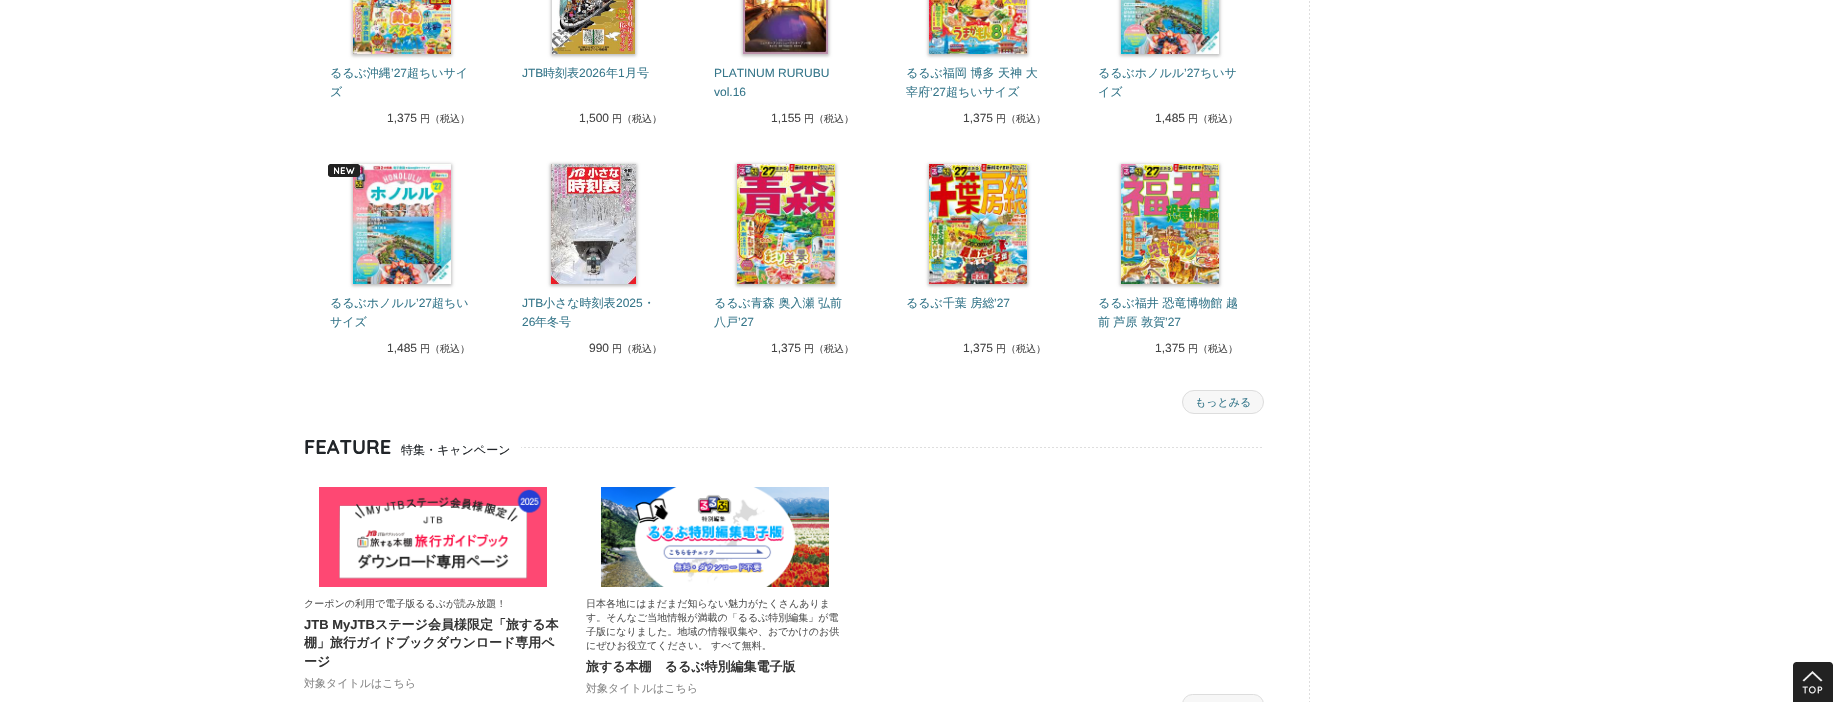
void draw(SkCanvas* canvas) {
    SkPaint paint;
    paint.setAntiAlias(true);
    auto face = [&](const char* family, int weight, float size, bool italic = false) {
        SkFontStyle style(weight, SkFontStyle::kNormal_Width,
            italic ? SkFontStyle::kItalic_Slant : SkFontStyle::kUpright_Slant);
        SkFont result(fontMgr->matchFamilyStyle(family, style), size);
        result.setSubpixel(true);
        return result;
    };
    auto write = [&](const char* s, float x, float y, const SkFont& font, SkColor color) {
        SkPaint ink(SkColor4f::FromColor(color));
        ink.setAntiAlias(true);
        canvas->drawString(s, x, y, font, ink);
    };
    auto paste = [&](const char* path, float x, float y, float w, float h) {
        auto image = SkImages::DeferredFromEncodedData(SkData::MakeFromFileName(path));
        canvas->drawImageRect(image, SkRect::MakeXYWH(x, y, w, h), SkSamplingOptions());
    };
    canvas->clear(SK_ColorWHITE);
    paint.setColor(SkColorSetARGB(64, 0, 0, 0));
    paint.setMaskFilter(SkMaskFilter::MakeBlur(kNormal_SkBlurStyle, 1.5f));
    canvas->drawRect(SkRect::MakeXYWH(352, -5, 100, 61), paint);
    paint.setMaskFilter(nullptr);
    paste("pic1.png", 353, 0, 98, 54);
    auto kFont1 = face("WenQuanYi Zen Hei", 500, 12);
    write("るるぶ沖縄", 330, 77, kFont1, SkColorSetRGB(55, 119, 139));
    auto kFont2 = face("Liberation Sans", 400, 12);
    write("’27", 391, 77, kFont2, SkColorSetRGB(55, 119, 139));
    write("超ちいサイ", 407, 77, kFont1, SkColorSetRGB(55, 119, 139));
    write("ズ", 330, 96, kFont1, SkColorSetRGB(55, 119, 139));
    write("1,375", 387, 122, kFont2, SkColorSetRGB(68, 68, 68));
    auto kFont3 = face("WenQuanYi Zen Hei", 500, 10);
    write("円（税込）", 420, 122, kFont3, SkColorSetRGB(68, 68, 68));
    paint.setMaskFilter(SkMaskFilter::MakeBlur(kNormal_SkBlurStyle, 1.5f));
    canvas->drawRect(SkRect::MakeXYWH(551, -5, 85, 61), paint);
    paint.setMaskFilter(nullptr);
    paste("pic2.png", 552, 0, 83, 54);
    write("JTB", 522, 77, kFont2, SkColorSetRGB(55, 119, 139));
    write("時刻表", 543, 77, kFont1, SkColorSetRGB(55, 119, 139));
    write("2026", 579, 77, kFont2, SkColorSetRGB(55, 119, 139));
    write("年", 606, 77, kFont1, SkColorSetRGB(55, 119, 139));
    write("1", 618, 77, kFont2, SkColorSetRGB(55, 119, 139));
    write("月号", 625, 77, kFont1, SkColorSetRGB(55, 119, 139));
    write("1,500", 579, 122, kFont2, SkColorSetRGB(68, 68, 68));
    write("円（税込）", 612, 122, kFont3, SkColorSetRGB(68, 68, 68));
    paint.setMaskFilter(SkMaskFilter::MakeBlur(kNormal_SkBlurStyle, 1.5f));
    canvas->drawRect(SkRect::MakeXYWH(742, -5, 87, 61), paint);
    paint.setMaskFilter(nullptr);
    paste("pic3.png", 743, 0, 85, 54);
    write("PLATINUM RURUBU", 714, 77, kFont2, SkColorSetRGB(55, 119, 139));
    write("vol.16", 714, 96, kFont2, SkColorSetRGB(55, 119, 139));
    write("1,155", 771, 122, kFont2, SkColorSetRGB(68, 68, 68));
    write("円（税込）", 804, 122, kFont3, SkColorSetRGB(68, 68, 68));
    paint.setMaskFilter(SkMaskFilter::MakeBlur(kNormal_SkBlurStyle, 1.5f));
    canvas->drawRect(SkRect::MakeXYWH(928, -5, 100, 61), paint);
    paint.setMaskFilter(nullptr);
    paste("pic4.png", 929, 0, 98, 54);
    write("るるぶ福岡 博多 天神 大", 906, 77, kFont1, SkColorSetRGB(55, 119, 139));
    write("宰府", 906, 96, kFont1, SkColorSetRGB(55, 119, 139));
    write("’27", 930, 96, kFont2, SkColorSetRGB(55, 119, 139));
    write("超ちいサイズ", 946, 96, kFont1, SkColorSetRGB(55, 119, 139));
    write("1,375", 963, 122, kFont2, SkColorSetRGB(68, 68, 68));
    write("円（税込）", 996, 122, kFont3, SkColorSetRGB(68, 68, 68));
    paint.setMaskFilter(SkMaskFilter::MakeBlur(kNormal_SkBlurStyle, 1.5f));
    canvas->drawRect(SkRect::MakeXYWH(1120, -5, 100, 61), paint);
    paint.setMaskFilter(nullptr);
    paste("pic5.png", 1121, 0, 98, 54);
    write("るるぶホノルル", 1098, 77, kFont1, SkColorSetRGB(55, 119, 139));
    write("’27", 1184, 77, kFont2, SkColorSetRGB(55, 119, 139));
    write("ちいサ", 1200, 77, kFont1, SkColorSetRGB(55, 119, 139));
    write("イズ", 1098, 96, kFont1, SkColorSetRGB(55, 119, 139));
    write("1,485", 1155, 122, kFont2, SkColorSetRGB(68, 68, 68));
    write("円（税込）", 1188, 122, kFont3, SkColorSetRGB(68, 68, 68));
    paint.setMaskFilter(SkMaskFilter::MakeBlur(kNormal_SkBlurStyle, 1.5f));
    canvas->drawRect(SkRect::MakeXYWH(352, 164, 100, 122), paint);
    paint.setMaskFilter(nullptr);
    paste("pic7.png", 353, 164, 98, 120);
    paste("pic6.png", 328, 164, 32, 13);
    write("るるぶホノルル", 330, 307, kFont1, SkColorSetRGB(55, 119, 139));
    write("’27", 416, 307, kFont2, SkColorSetRGB(55, 119, 139));
    write("超ちい", 432, 307, kFont1, SkColorSetRGB(55, 119, 139));
    write("サイズ", 330, 326, kFont1, SkColorSetRGB(55, 119, 139));
    write("1,485", 387, 352, kFont2, SkColorSetRGB(68, 68, 68));
    write("円（税込）", 420, 352, kFont3, SkColorSetRGB(68, 68, 68));
    paint.setMaskFilter(SkMaskFilter::MakeBlur(kNormal_SkBlurStyle, 1.5f));
    canvas->drawRect(SkRect::MakeXYWH(550, 164, 87, 122), paint);
    paint.setMaskFilter(nullptr);
    paste("pic8.png", 551, 164, 85, 120);
    write("JTB", 522, 307, kFont2, SkColorSetRGB(55, 119, 139));
    write("小さな時刻表", 543, 307, kFont1, SkColorSetRGB(55, 119, 139));
    write("2025", 616, 307, kFont2, SkColorSetRGB(55, 119, 139));
    write("・", 643, 307, kFont1, SkColorSetRGB(55, 119, 139));
    write("26", 522, 326, kFont2, SkColorSetRGB(55, 119, 139));
    write("年冬号", 535, 326, kFont1, SkColorSetRGB(55, 119, 139));
    write("990", 589, 352, kFont2, SkColorSetRGB(68, 68, 68));
    write("円（税込）", 612, 352, kFont3, SkColorSetRGB(68, 68, 68));
    paint.setMaskFilter(SkMaskFilter::MakeBlur(kNormal_SkBlurStyle, 1.5f));
    canvas->drawRect(SkRect::MakeXYWH(736, 164, 100, 122), paint);
    paint.setMaskFilter(nullptr);
    paste("pic9.png", 737, 164, 98, 120);
    write("るるぶ青森 奥入瀬 弘前", 714, 307, kFont1, SkColorSetRGB(55, 119, 139));
    write("八戸", 714, 326, kFont1, SkColorSetRGB(55, 119, 139));
    write("’27", 738, 326, kFont2, SkColorSetRGB(55, 119, 139));
    write("1,375", 771, 352, kFont2, SkColorSetRGB(68, 68, 68));
    write("円（税込）", 804, 352, kFont3, SkColorSetRGB(68, 68, 68));
    paint.setMaskFilter(SkMaskFilter::MakeBlur(kNormal_SkBlurStyle, 1.5f));
    canvas->drawRect(SkRect::MakeXYWH(928, 164, 100, 122), paint);
    paint.setMaskFilter(nullptr);
    paste("pic10.png", 929, 164, 98, 120);
    write("るるぶ千葉 房総", 906, 307, kFont1, SkColorSetRGB(55, 119, 139));
    write("’27", 994, 307, kFont2, SkColorSetRGB(55, 119, 139));
    write("1,375", 963, 352, kFont2, SkColorSetRGB(68, 68, 68));
    write("円（税込）", 996, 352, kFont3, SkColorSetRGB(68, 68, 68));
    paint.setMaskFilter(SkMaskFilter::MakeBlur(kNormal_SkBlurStyle, 1.5f));
    canvas->drawRect(SkRect::MakeXYWH(1120, 164, 100, 122), paint);
    paint.setMaskFilter(nullptr);
    paste("pic11.png", 1121, 164, 98, 120);
    write("るるぶ福井 恐竜博物館 越", 1098, 307, kFont1, SkColorSetRGB(55, 119, 139));
    write("前 芦原 敦賀", 1098, 326, kFont1, SkColorSetRGB(55, 119, 139));
    write("’27", 1165, 326, kFont2, SkColorSetRGB(55, 119, 139));
    write("1,375", 1155, 352, kFont2, SkColorSetRGB(68, 68, 68));
    write("円（税込）", 1188, 352, kFont3, SkColorSetRGB(68, 68, 68));
    paint.setColor(SkColorSetRGB(247, 247, 247));
    canvas->drawRoundRect(SkRect::MakeXYWH(1182.5f, 390.5f, 81, 23), 11.5f, 11.5f, paint);
    paint.setStyle(SkPaint::kStroke_Style);
    paint.setStrokeWidth(1);
    paint.setColor(SkColorSetRGB(221, 221, 221));
    canvas->drawRoundRect(SkRect::MakeXYWH(1182.5f, 390.5f, 81, 23), 11.5f, 11.5f, paint);
    auto kFont4 = face("WenQuanYi Zen Hei", 500, 11);
    write("もっとみる", 1195, 406, kFont4, SkColorSetRGB(55, 119, 139));
    paste("pic12.png", 521, 447, 741, 1);
    auto kFont5 = face("Quicksand", 700, 20);
    write("FEATURE", 304, 454, kFont5, SkColorSetRGB(33, 37, 41));
    write("特集・キャンペーン", 401, 454, kFont1, SkColorSetRGB(33, 37, 41));
    paste("pic13.png", 319, 487, 228, 100);
    write("クーポンの利用で電子版るるぶが読み放題！", 304, 607, kFont3, SkColorSetRGB(85, 85, 85));
    auto kFont6 = face("Liberation Sans", 700, 13);
    write("JTB MyJTB", 304, 629, kFont6, SkColorSetRGB(51, 51, 51));
    auto kFont7 = face("WenQuanYi Zen Hei", 700, 13);
    write("ステージ会員様限定「旅する本", 375, 629, kFont7, SkColorSetRGB(51, 51, 51));
    write("棚」旅行ガイドブックダウンロード専用ペ", 304, 647, kFont7, SkColorSetRGB(51, 51, 51));
    write("ージ", 304, 666, kFont7, SkColorSetRGB(51, 51, 51));
    write("対象タイトルはこちら", 304, 687, kFont4, SkColorSetRGB(136, 136, 136));
    paste("pic14.png", 601, 487, 228, 100);
    write("日本各地にはまだまだ知らない魅力がたくさんありま", 586, 607, kFont3, SkColorSetRGB(85, 85, 85));
    write("す。そんなご当地情報が満載の「るるぶ特別編集」が電", 586, 621, kFont3, SkColorSetRGB(85, 85, 85));
    write("子版になりました。地域の情報収集や、おでかけのお供", 586, 635, kFont3, SkColorSetRGB(85, 85, 85));
    write("にぜひお役立てください。 すべて無料。", 586, 649, kFont3, SkColorSetRGB(85, 85, 85));
    write("旅する本棚　るるぶ特別編集電子版", 586, 671, kFont7, SkColorSetRGB(51, 51, 51));
    write("対象タイトルはこちら", 586, 692, kFont4, SkColorSetRGB(136, 136, 136));
    paint.setStyle(SkPaint::kFill_Style);
    paint.setColor(SkColorSetRGB(247, 247, 247));
    canvas->drawRoundRect(SkRect::MakeXYWH(1182.5f, 694.5f, 81, 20), 11.5f, 11.5f, paint);
    paint.setStyle(SkPaint::kStroke_Style);
    paint.setColor(SkColorSetRGB(221, 221, 221));
    canvas->drawRoundRect(SkRect::MakeXYWH(1182.5f, 694.5f, 81, 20), 11.5f, 11.5f, paint);
    paste("pic15.png", 1309, 1, 1, 701);
    paste("pic16.png", 1793, 662, 40, 40);
}
